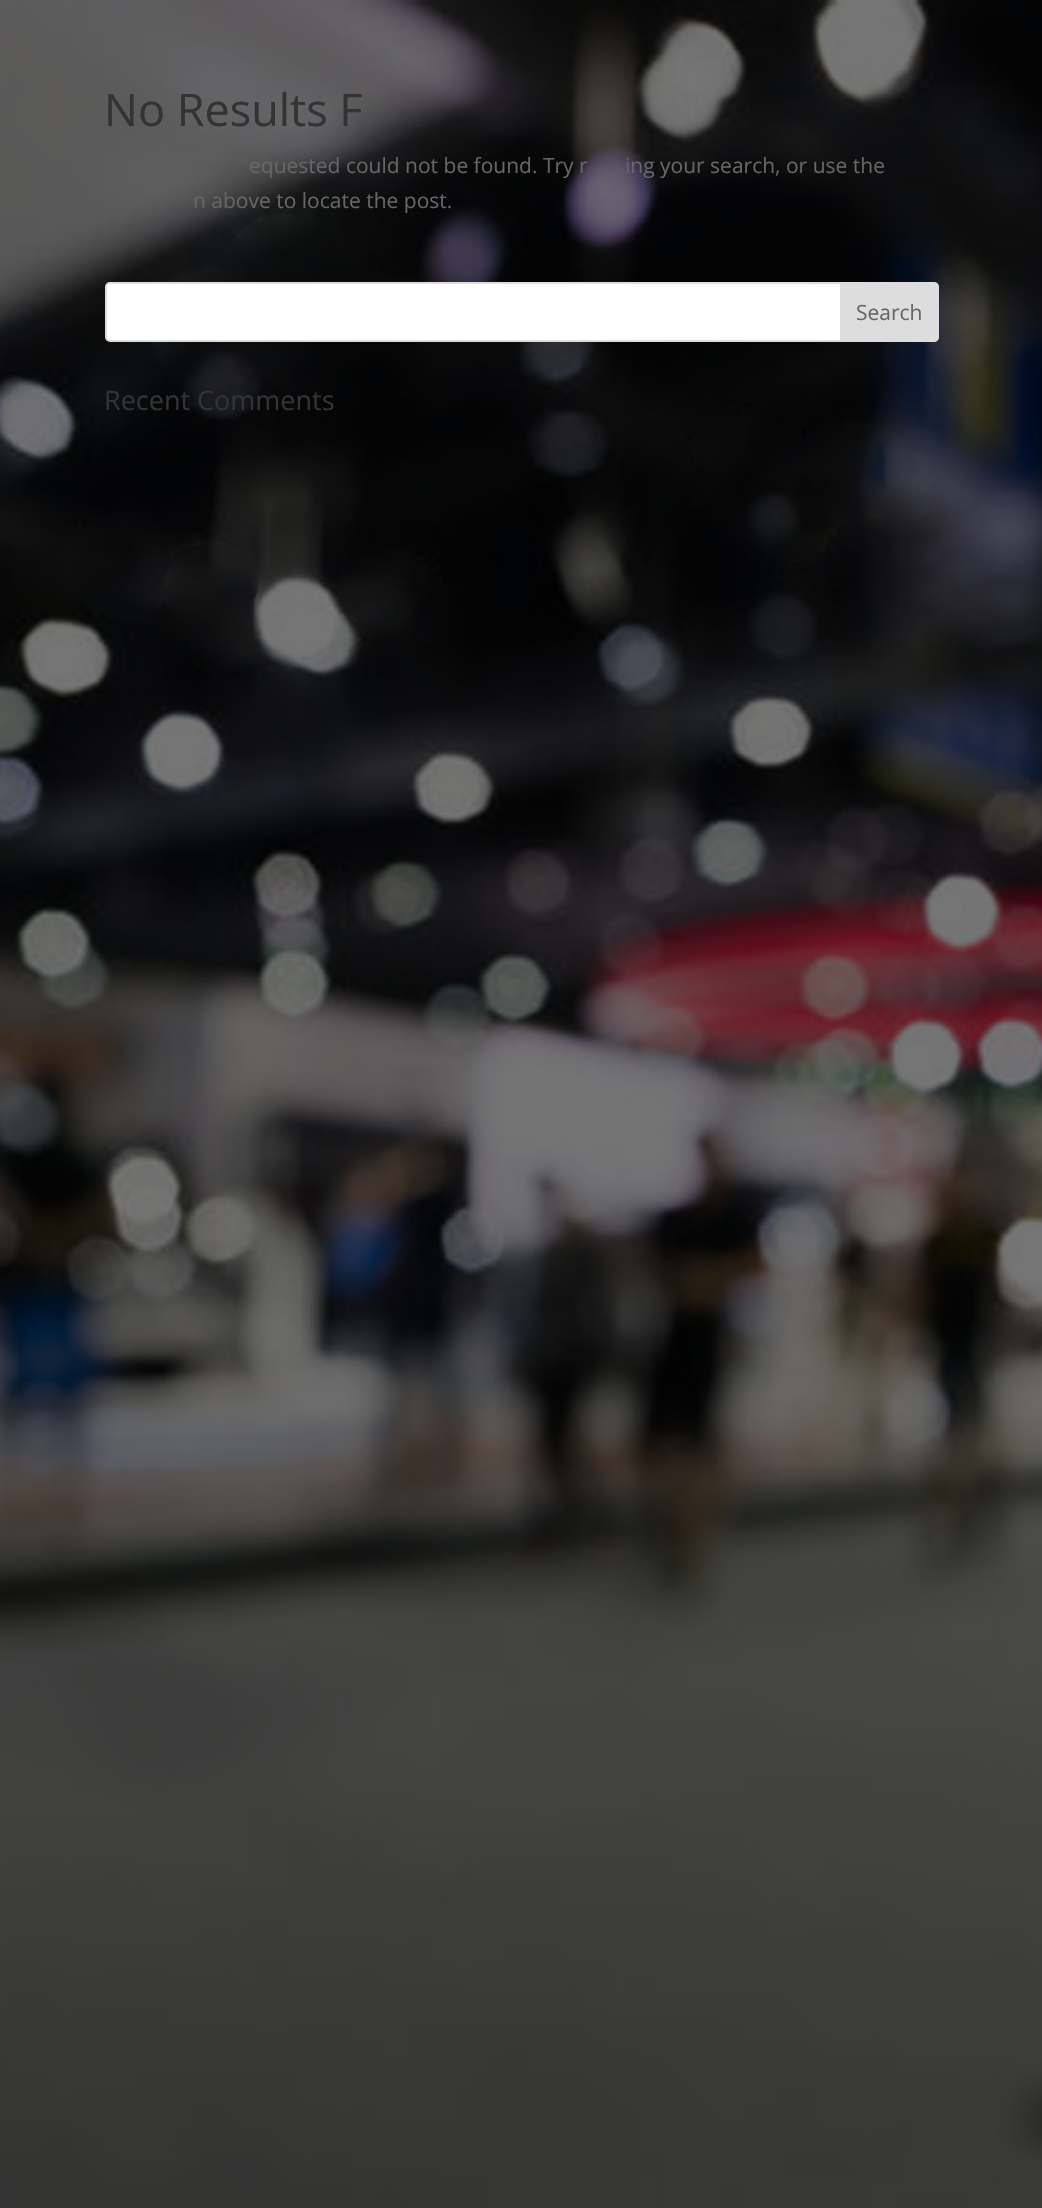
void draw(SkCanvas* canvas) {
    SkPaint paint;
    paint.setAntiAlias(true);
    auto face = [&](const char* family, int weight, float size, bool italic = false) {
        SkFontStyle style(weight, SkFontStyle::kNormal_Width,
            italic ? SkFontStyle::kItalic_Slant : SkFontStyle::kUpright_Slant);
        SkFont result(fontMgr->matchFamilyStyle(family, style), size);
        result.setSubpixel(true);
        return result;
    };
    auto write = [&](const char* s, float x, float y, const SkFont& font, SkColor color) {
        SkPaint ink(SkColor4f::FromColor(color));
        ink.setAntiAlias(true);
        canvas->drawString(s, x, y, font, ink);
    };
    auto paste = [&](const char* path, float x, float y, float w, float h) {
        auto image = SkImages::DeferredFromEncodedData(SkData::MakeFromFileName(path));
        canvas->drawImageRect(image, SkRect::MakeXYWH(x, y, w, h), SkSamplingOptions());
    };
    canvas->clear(SK_ColorWHITE);
    paste("pic1.png", 0, 0, 1042, 2208);
    auto kFont1 = face("Open Sans", 400, 45);
    write("No Results F", 104, 126, kFont1, SkColorSetRGB(51, 51, 51));
    auto kFont2 = face("Open Sans", 400, 21);
    write("equested could not be found. Try r", 249, 173, kFont2, SkColorSetRGB(102, 102, 102));
    write("ing your search, or use the", 625, 173, kFont2, SkColorSetRGB(102, 102, 102));
    write("n above to locate the post.", 193, 208, kFont2, SkColorSetRGB(102, 102, 102));
    paint.setColor(SK_ColorWHITE);
    canvas->drawRoundRect(SkRect::MakeXYWH(106, 283, 832, 58), 4, 4, paint);
    paint.setStyle(SkPaint::kStroke_Style);
    paint.setStrokeWidth(2);
    paint.setColor(SkColorSetRGB(221, 221, 221));
    canvas->drawRoundRect(SkRect::MakeXYWH(106, 283, 832, 58), 4, 4, paint);
    paint.setStyle(SkPaint::kFill_Style);
    canvas->drawPath(SkPathBuilder().moveTo(841, 283).lineTo(934, 283).cubicTo(936, 283, 938, 285, 938, 287).lineTo(938, 337).cubicTo(938, 339, 936, 341, 934, 341).lineTo(841, 341).close().detach(), paint);
    paint.setStyle(SkPaint::kStroke_Style);
    canvas->drawPath(SkPathBuilder().moveTo(841, 283).lineTo(934, 283).cubicTo(936, 283, 938, 285, 938, 287).lineTo(938, 337).cubicTo(938, 339, 936, 341, 934, 341).lineTo(841, 341).close().detach(), paint);
    write("Search", 856, 320, kFont2, SkColorSetRGB(102, 102, 102));
    auto kFont3 = face("Open Sans", 400, 27);
    write("Recent Comments", 104, 410, kFont3, SkColorSetRGB(51, 51, 51));
}
